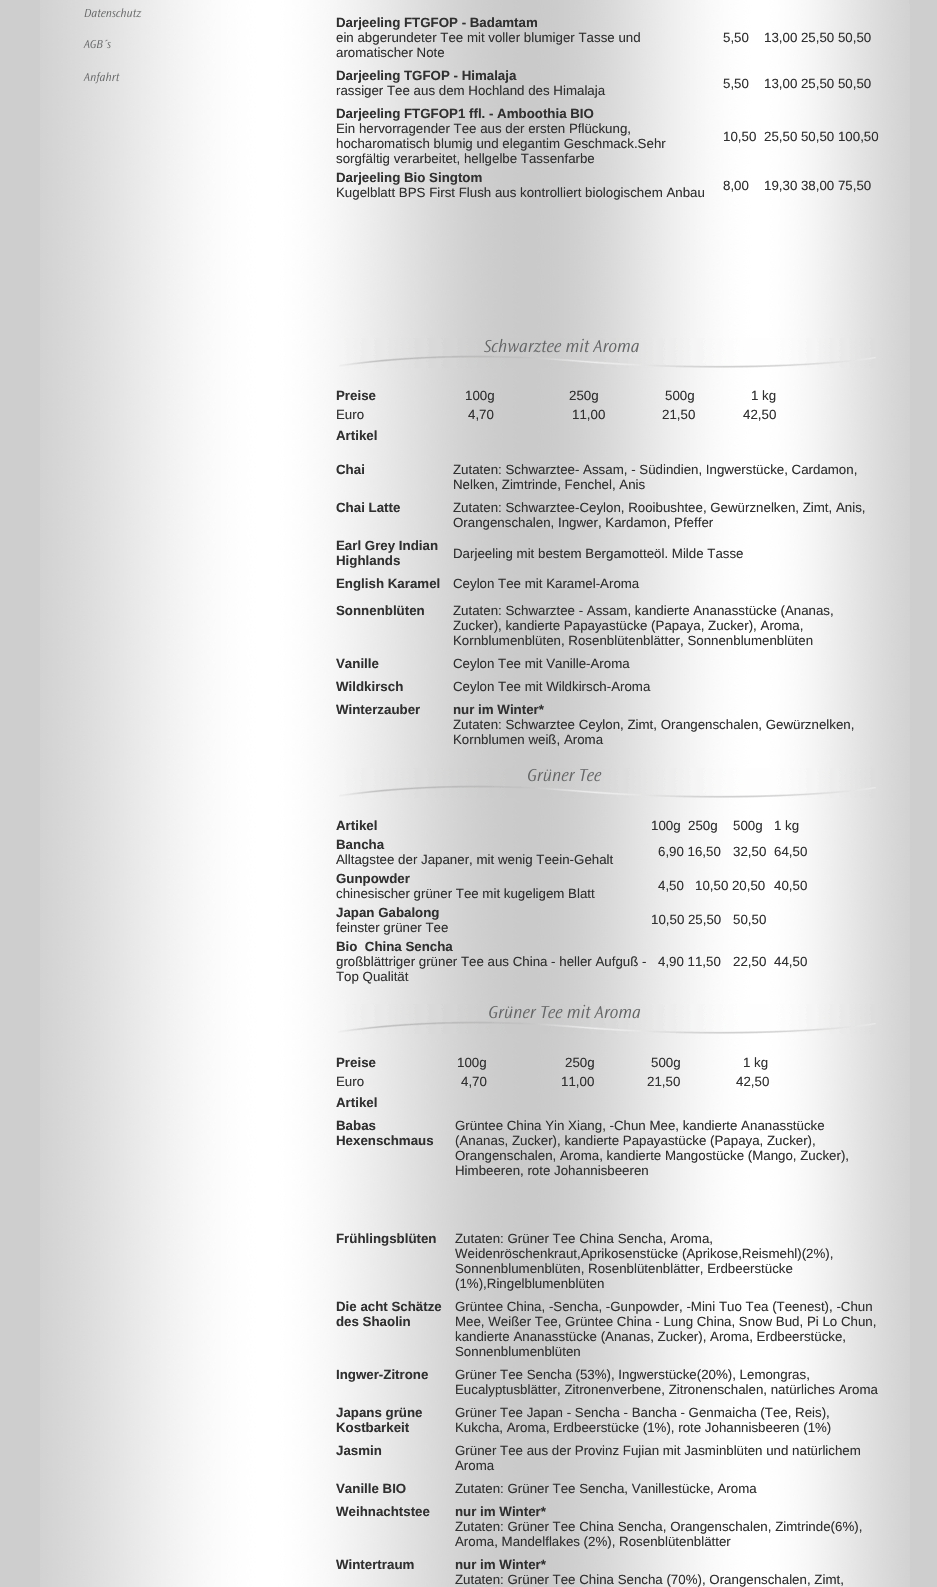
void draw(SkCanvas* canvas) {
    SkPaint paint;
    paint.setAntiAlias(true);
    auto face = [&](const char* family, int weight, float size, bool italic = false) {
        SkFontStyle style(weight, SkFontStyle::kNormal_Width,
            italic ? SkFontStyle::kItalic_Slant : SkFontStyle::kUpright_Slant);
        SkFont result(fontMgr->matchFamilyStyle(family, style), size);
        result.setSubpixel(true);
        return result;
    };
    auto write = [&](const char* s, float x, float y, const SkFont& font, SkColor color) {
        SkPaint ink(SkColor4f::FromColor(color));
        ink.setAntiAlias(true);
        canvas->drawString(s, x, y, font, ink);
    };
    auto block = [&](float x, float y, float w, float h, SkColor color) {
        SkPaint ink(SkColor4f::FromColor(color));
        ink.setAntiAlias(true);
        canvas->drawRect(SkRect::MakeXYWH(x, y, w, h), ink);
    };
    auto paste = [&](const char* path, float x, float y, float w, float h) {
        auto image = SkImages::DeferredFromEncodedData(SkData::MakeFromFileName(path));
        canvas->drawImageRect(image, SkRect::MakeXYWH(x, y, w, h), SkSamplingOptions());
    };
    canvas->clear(SkColorSetRGB(206, 206, 206));
    paste("pic1.png", 40, 0, 869, 1587);
    paste("pic2.png", 84, 8, 58, 10);
    paste("pic3.png", 83, 39, 28, 10);
    paste("pic4.png", 83, 72, 37, 12);
    auto kFont1 = face("Liberation Sans", 700, 13.3f);
    write("Darjeeling FTGFOP - Badamtam", 336, 27, kFont1, SkColorSetRGB(48, 48, 49));
    auto kFont2 = face("Liberation Sans", 400, 13.3f);
    write("ein abgerundeter Tee mit voller blumiger Tasse und", 336, 42, kFont2, SkColorSetRGB(48, 48, 49));
    write("aromatischer Note", 336, 57, kFont2, SkColorSetRGB(48, 48, 49));
    write("5,50", 723, 42, kFont2, SkColorSetRGB(48, 48, 49));
    write("13,00 25,50 50,50", 764, 42, kFont2, SkColorSetRGB(48, 48, 49));
    write("Darjeeling TGFOP - Himalaja", 336, 80, kFont1, SkColorSetRGB(48, 48, 49));
    write("rassiger Tee aus dem Hochland des Himalaja", 336, 95, kFont2, SkColorSetRGB(48, 48, 49));
    write("5,50", 723, 88, kFont2, SkColorSetRGB(48, 48, 49));
    write("13,00 25,50 50,50", 764, 88, kFont2, SkColorSetRGB(48, 48, 49));
    write("Darjeeling FTGFOP1 ffl. - Amboothia BIO", 336, 118, kFont1, SkColorSetRGB(48, 48, 49));
    write("Ein hervorragender Tee aus der ersten Pflückung,", 336, 133, kFont2, SkColorSetRGB(48, 48, 49));
    write("hocharomatisch blumig und elegantim Geschmack.Sehr", 336, 148, kFont2, SkColorSetRGB(48, 48, 49));
    write("sorgfältig verarbeitet, hellgelbe Tassenfarbe", 336, 163, kFont2, SkColorSetRGB(48, 48, 49));
    write("10,50", 723, 141, kFont2, SkColorSetRGB(48, 48, 49));
    write("25,50 50,50 100,50", 764, 141, kFont2, SkColorSetRGB(48, 48, 49));
    write("Darjeeling Bio Singtom", 336, 182, kFont1, SkColorSetRGB(48, 48, 49));
    write("Kugelblatt BPS First Flush aus kontrolliert biologischem Anbau", 336, 197, kFont2, SkColorSetRGB(48, 48, 49));
    write("8,00", 723, 190, kFont2, SkColorSetRGB(48, 48, 49));
    write("19,30 38,00 75,50", 764, 190, kFont2, SkColorSetRGB(48, 48, 49));
    paste("pic5.png", 339, 338, 537, 30);
    write("Preise", 336, 400, kFont1, SkColorSetRGB(48, 48, 49));
    write("100g", 465, 400, kFont2, SkColorSetRGB(48, 48, 49));
    write("250g", 569, 400, kFont2, SkColorSetRGB(48, 48, 49));
    write("500g", 665, 400, kFont2, SkColorSetRGB(48, 48, 49));
    write("1 kg", 751, 400, kFont2, SkColorSetRGB(48, 48, 49));
    write("Euro", 336, 419, kFont2, SkColorSetRGB(48, 48, 49));
    write("4,70", 468, 419, kFont2, SkColorSetRGB(48, 48, 49));
    write("11,00", 572, 419, kFont2, SkColorSetRGB(48, 48, 49));
    write("21,50", 662, 419, kFont2, SkColorSetRGB(48, 48, 49));
    write("42,50", 743, 419, kFont2, SkColorSetRGB(48, 48, 49));
    write("Artikel", 336, 440, kFont1, SkColorSetRGB(48, 48, 49));
    write("Chai", 336, 474, kFont1, SkColorSetRGB(48, 48, 49));
    write("Zutaten: Schwarztee- Assam, - Südindien, Ingwerstücke, Cardamon,", 453, 474, kFont2, SkColorSetRGB(48, 48, 49));
    write("Nelken, Zimtrinde, Fenchel, Anis", 453, 489, kFont2, SkColorSetRGB(48, 48, 49));
    write("Chai Latte", 336, 512, kFont1, SkColorSetRGB(48, 48, 49));
    write("Zutaten: Schwarztee-Ceylon, Rooibushtee, Gewürznelken, Zimt, Anis,", 453, 512, kFont2, SkColorSetRGB(48, 48, 49));
    write("Orangenschalen, Ingwer, Kardamon, Pfeffer", 453, 527, kFont2, SkColorSetRGB(48, 48, 49));
    write("Earl Grey Indian", 336, 550, kFont1, SkColorSetRGB(48, 48, 49));
    write("Highlands", 336, 565, kFont1, SkColorSetRGB(48, 48, 49));
    write("Darjeeling mit bestem Bergamotteöl. Milde Tasse", 453, 558, kFont2, SkColorSetRGB(48, 48, 49));
    write("English Karamel", 336, 588, kFont1, SkColorSetRGB(48, 48, 49));
    write("Ceylon Tee mit Karamel-Aroma", 453, 588, kFont2, SkColorSetRGB(48, 48, 49));
    write("Sonnenblüten", 336, 615, kFont1, SkColorSetRGB(48, 48, 49));
    write("Zutaten: Schwarztee - Assam, kandierte Ananasstücke (Ananas,", 453, 615, kFont2, SkColorSetRGB(48, 48, 49));
    write("Zucker), kandierte Papayastücke (Papaya, Zucker), Aroma,", 453, 630, kFont2, SkColorSetRGB(48, 48, 49));
    write("Kornblumenblüten, Rosenblütenblätter, Sonnenblumenblüten", 453, 645, kFont2, SkColorSetRGB(48, 48, 49));
    write("Vanille", 336, 668, kFont1, SkColorSetRGB(48, 48, 49));
    write("Ceylon Tee mit Vanille-Aroma", 453, 668, kFont2, SkColorSetRGB(48, 48, 49));
    write("Wildkirsch", 336, 691, kFont1, SkColorSetRGB(48, 48, 49));
    write("Ceylon Tee mit Wildkirsch-Aroma", 453, 691, kFont2, SkColorSetRGB(48, 48, 49));
    write("Winterzauber", 336, 714, kFont1, SkColorSetRGB(48, 48, 49));
    write("nur im Winter*", 453, 714, kFont1, SkColorSetRGB(48, 48, 49));
    write("Zutaten: Schwarztee Ceylon, Zimt, Orangenschalen, Gewürznelken,", 453, 729, kFont2, SkColorSetRGB(48, 48, 49));
    write("Kornblumen weiß, Aroma", 453, 744, kFont2, SkColorSetRGB(48, 48, 49));
    paste("pic6.png", 339, 768, 537, 30);
    write("Artikel", 336, 830, kFont1, SkColorSetRGB(48, 48, 49));
    write("100g", 651, 830, kFont2, SkColorSetRGB(48, 48, 49));
    write("250g", 688, 830, kFont2, SkColorSetRGB(48, 48, 49));
    write("500g", 733, 830, kFont2, SkColorSetRGB(48, 48, 49));
    write("1 kg", 774, 830, kFont2, SkColorSetRGB(48, 48, 49));
    write("Bancha", 336, 849, kFont1, SkColorSetRGB(48, 48, 49));
    write("Alltagstee der Japaner, mit wenig Teein-Gehalt", 336, 864, kFont2, SkColorSetRGB(48, 48, 49));
    write("6,90 16,50", 658, 856, kFont2, SkColorSetRGB(48, 48, 49));
    write("32,50", 733, 856, kFont2, SkColorSetRGB(48, 48, 49));
    write("64,50", 774, 856, kFont2, SkColorSetRGB(48, 48, 49));
    write("Gunpowder", 336, 883, kFont1, SkColorSetRGB(48, 48, 49));
    write("chinesischer grüner Tee mit kugeligem Blatt", 336, 898, kFont2, SkColorSetRGB(48, 48, 49));
    write("4,50", 658, 890, kFont2, SkColorSetRGB(48, 48, 49));
    write("10,50 20,50", 695, 890, kFont2, SkColorSetRGB(48, 48, 49));
    write("40,50", 774, 890, kFont2, SkColorSetRGB(48, 48, 49));
    write("Japan Gabalong", 336, 917, kFont1, SkColorSetRGB(48, 48, 49));
    write("feinster grüner Tee", 336, 932, kFont2, SkColorSetRGB(48, 48, 49));
    write("10,50 25,50", 651, 924, kFont2, SkColorSetRGB(48, 48, 49));
    write("50,50", 733, 924, kFont2, SkColorSetRGB(48, 48, 49));
    write("Bio  China Sencha", 336, 951, kFont1, SkColorSetRGB(48, 48, 49));
    write("großblättriger grüner Tee aus China - heller Aufguß -", 336, 966, kFont2, SkColorSetRGB(48, 48, 49));
    write("Top Qualität", 336, 981, kFont2, SkColorSetRGB(48, 48, 49));
    write("4,90 11,50", 658, 966, kFont2, SkColorSetRGB(48, 48, 49));
    write("22,50", 733, 966, kFont2, SkColorSetRGB(48, 48, 49));
    write("44,50", 774, 966, kFont2, SkColorSetRGB(48, 48, 49));
    paste("pic7.png", 338, 1004, 538, 30);
    write("Preise", 336, 1067, kFont1, SkColorSetRGB(48, 48, 49));
    write("100g", 457, 1067, kFont2, SkColorSetRGB(48, 48, 49));
    write("250g", 565, 1067, kFont2, SkColorSetRGB(48, 48, 49));
    write("500g", 651, 1067, kFont2, SkColorSetRGB(48, 48, 49));
    write("1 kg", 743, 1067, kFont2, SkColorSetRGB(48, 48, 49));
    write("Euro", 336, 1086, kFont2, SkColorSetRGB(48, 48, 49));
    write("4,70", 461, 1086, kFont2, SkColorSetRGB(48, 48, 49));
    write("11,00", 561, 1086, kFont2, SkColorSetRGB(48, 48, 49));
    write("21,50", 647, 1086, kFont2, SkColorSetRGB(48, 48, 49));
    write("42,50", 736, 1086, kFont2, SkColorSetRGB(48, 48, 49));
    write("Artikel", 336, 1107, kFont1, SkColorSetRGB(48, 48, 49));
    write("Babas", 336, 1130, kFont1, SkColorSetRGB(48, 48, 49));
    write("Hexenschmaus", 336, 1145, kFont1, SkColorSetRGB(48, 48, 49));
    write("Grüntee China Yin Xiang, -Chun Mee, kandierte Ananasstücke", 455, 1130, kFont2, SkColorSetRGB(48, 48, 49));
    write("(Ananas, Zucker), kandierte Papayastücke (Papaya, Zucker),", 455, 1145, kFont2, SkColorSetRGB(48, 48, 49));
    write("Orangenschalen, Aroma, kandierte Mangostücke (Mango, Zucker),", 455, 1160, kFont2, SkColorSetRGB(48, 48, 49));
    write("Himbeeren, rote Johannisbeeren", 455, 1175, kFont2, SkColorSetRGB(48, 48, 49));
    write("Frühlingsblüten", 336, 1243, kFont1, SkColorSetRGB(48, 48, 49));
    write("Zutaten: Grüner Tee China Sencha, Aroma,", 455, 1243, kFont2, SkColorSetRGB(48, 48, 49));
    write("Weidenröschenkraut,Aprikosenstücke (Aprikose,Reismehl)(2%),", 455, 1258, kFont2, SkColorSetRGB(48, 48, 49));
    write("Sonnenblumenblüten, Rosenblütenblätter, Erdbeerstücke", 455, 1273, kFont2, SkColorSetRGB(48, 48, 49));
    write("(1%),Ringelblumenblüten", 455, 1288, kFont2, SkColorSetRGB(48, 48, 49));
    write("Die acht Schätze", 336, 1311, kFont1, SkColorSetRGB(48, 48, 49));
    write("des Shaolin", 336, 1326, kFont1, SkColorSetRGB(48, 48, 49));
    write("Grüntee China, -Sencha, -Gunpowder, -Mini Tuo Tea (Teenest), -Chun", 455, 1311, kFont2, SkColorSetRGB(48, 48, 49));
    write("Mee, Weißer Tee, Grüntee China - Lung China, Snow Bud, Pi Lo Chun,", 455, 1326, kFont2, SkColorSetRGB(48, 48, 49));
    write("kandierte Ananasstücke (Ananas, Zucker), Aroma, Erdbeerstücke,", 455, 1341, kFont2, SkColorSetRGB(48, 48, 49));
    write("Sonnenblumenblüten", 455, 1356, kFont2, SkColorSetRGB(48, 48, 49));
    write("Ingwer-Zitrone", 336, 1379, kFont1, SkColorSetRGB(48, 48, 49));
    write("Grüner Tee Sencha (53%), Ingwerstücke(20%), Lemongras,", 455, 1379, kFont2, SkColorSetRGB(48, 48, 49));
    write("Eucalyptusblätter, Zitronenverbene, Zitronenschalen, natürliches Aroma", 455, 1394, kFont2, SkColorSetRGB(48, 48, 49));
    write("Japans grüne", 336, 1417, kFont1, SkColorSetRGB(48, 48, 49));
    write("Kostbarkeit", 336, 1432, kFont1, SkColorSetRGB(48, 48, 49));
    write("Grüner Tee Japan - Sencha - Bancha - Genmaicha (Tee, Reis),", 455, 1417, kFont2, SkColorSetRGB(48, 48, 49));
    write("Kukcha, Aroma, Erdbeerstücke (1%), rote Johannisbeeren (1%)", 455, 1432, kFont2, SkColorSetRGB(48, 48, 49));
    write("Jasmin", 336, 1455, kFont1, SkColorSetRGB(48, 48, 49));
    write("Grüner Tee aus der Provinz Fujian mit Jasminblüten und natürlichem", 455, 1455, kFont2, SkColorSetRGB(48, 48, 49));
    write("Aroma", 455, 1470, kFont2, SkColorSetRGB(48, 48, 49));
    write("Vanille BIO", 336, 1493, kFont1, SkColorSetRGB(48, 48, 49));
    write("Zutaten: Grüner Tee Sencha, Vanillestücke, Aroma", 455, 1493, kFont2, SkColorSetRGB(48, 48, 49));
    write("Weihnachtstee", 336, 1516, kFont1, SkColorSetRGB(48, 48, 49));
    write("nur im Winter*", 455, 1516, kFont1, SkColorSetRGB(48, 48, 49));
    write("Zutaten: Grüner Tee China Sencha, Orangenschalen, Zimtrinde(6%),", 455, 1531, kFont2, SkColorSetRGB(48, 48, 49));
    write("Aroma, Mandelflakes (2%), Rosenblütenblätter", 455, 1546, kFont2, SkColorSetRGB(48, 48, 49));
    write("Wintertraum", 336, 1569, kFont1, SkColorSetRGB(48, 48, 49));
    write("nur im Winter*", 455, 1569, kFont1, SkColorSetRGB(48, 48, 49));
    write("Zutaten: Grüner Tee China Sencha (70%), Orangenschalen, Zimt,", 455, 1584, kFont2, SkColorSetRGB(48, 48, 49));
    block(909, 4, 1, 1583, SkColorSetRGB(210, 210, 210));
}
